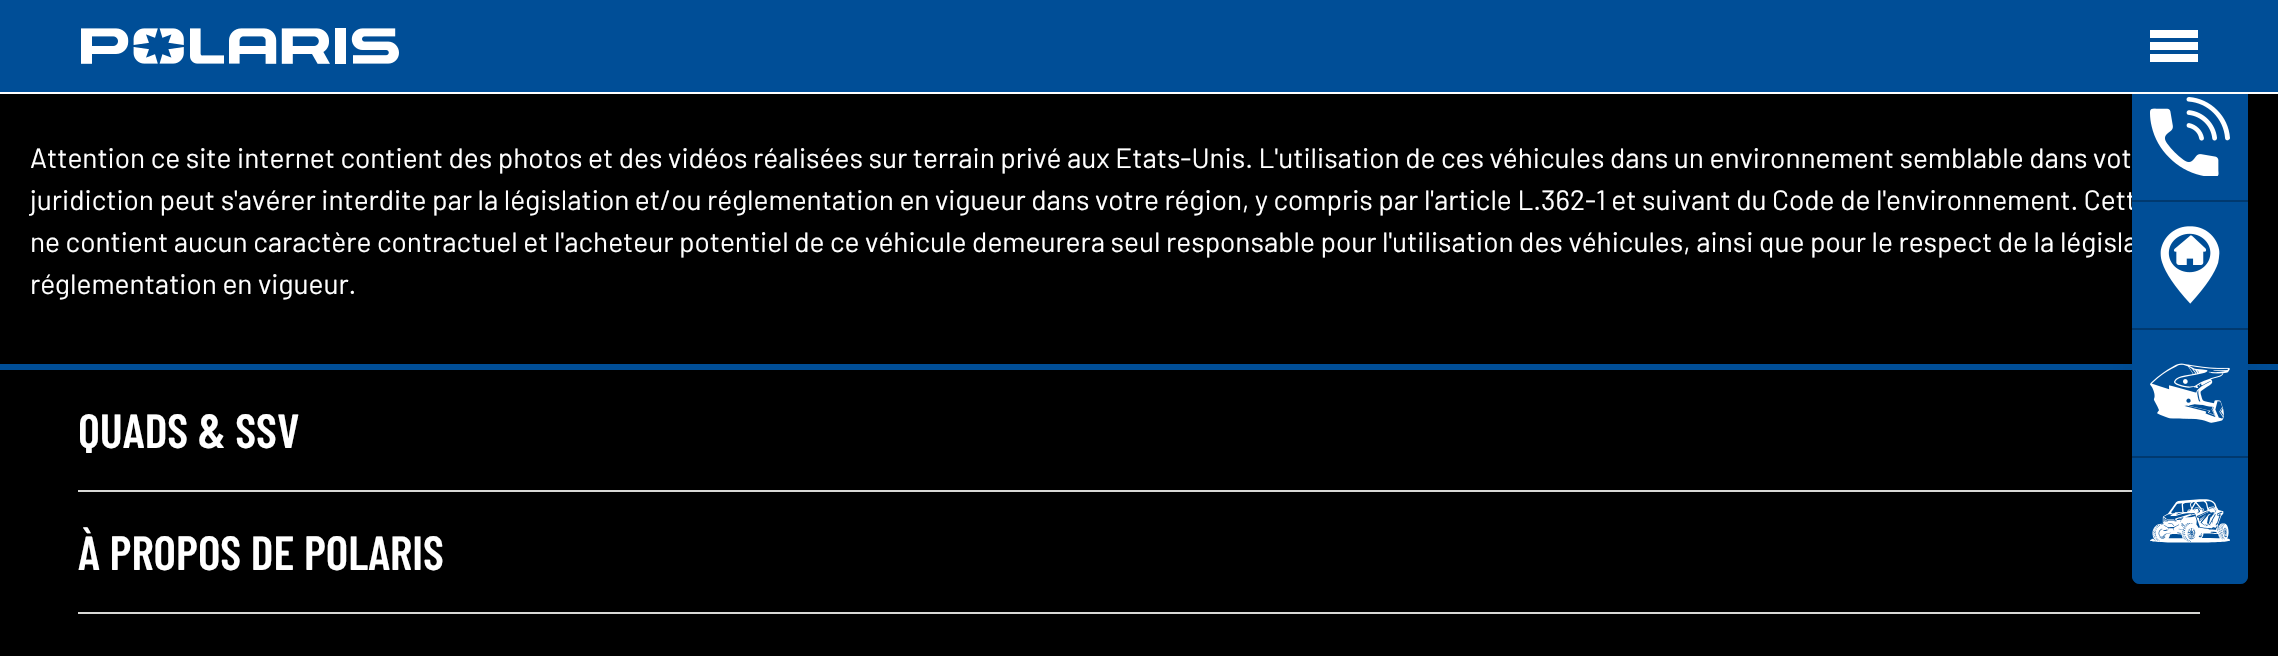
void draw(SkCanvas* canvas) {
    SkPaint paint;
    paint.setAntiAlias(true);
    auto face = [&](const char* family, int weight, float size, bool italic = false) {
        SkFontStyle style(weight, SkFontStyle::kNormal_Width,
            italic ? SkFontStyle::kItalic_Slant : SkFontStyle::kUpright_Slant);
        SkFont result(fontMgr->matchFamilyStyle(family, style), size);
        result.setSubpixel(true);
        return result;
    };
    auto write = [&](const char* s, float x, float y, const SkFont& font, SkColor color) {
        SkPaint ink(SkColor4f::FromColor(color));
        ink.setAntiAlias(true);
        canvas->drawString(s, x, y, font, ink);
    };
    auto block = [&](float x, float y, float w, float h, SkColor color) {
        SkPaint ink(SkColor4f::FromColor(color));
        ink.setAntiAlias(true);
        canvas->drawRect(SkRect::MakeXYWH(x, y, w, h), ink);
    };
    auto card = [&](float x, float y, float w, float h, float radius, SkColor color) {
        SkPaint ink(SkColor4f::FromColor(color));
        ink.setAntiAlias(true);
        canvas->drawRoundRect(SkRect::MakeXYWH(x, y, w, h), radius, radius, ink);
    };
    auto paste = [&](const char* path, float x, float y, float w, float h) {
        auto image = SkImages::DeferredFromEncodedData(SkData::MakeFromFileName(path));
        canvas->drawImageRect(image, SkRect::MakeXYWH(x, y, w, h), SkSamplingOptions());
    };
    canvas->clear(SK_ColorBLACK);
    block(0, 364, 2278, 6, SkColorSetRGB(0, 78, 151));
    block(78, 490, 2054, 2, SkColorSetRGB(217, 217, 214));
    block(78, 612, 2122, 2, SkColorSetRGB(217, 217, 214));
    paint.setColor(SkColorSetARGB(26, 0, 0, 0));
    paint.setMaskFilter(SkMaskFilter::MakeBlur(kNormal_SkBlurStyle, 15));
    canvas->drawRoundRect(SkRect::MakeXYWH(2138, 100, 104, 498), 2, 2, paint);
    paint.setMaskFilter(nullptr);
    auto kFont1 = face("Barlow", 400, 28);
    write("juridiction peut s'avérer interdite par la législation et/ou réglementation en vigueur dans votre région, y compris par l'article L.362-1 et suivant du Code de l'environnement. Cett", 30, 210, kFont1, SK_ColorWHITE);
    write("ne contient aucun caractère contractuel et l'acheteur potentiel de ce véhicule demeurera seul responsable pour l'utilisation des véhicules, ainsi que pour le respect de la législa", 30, 252, kFont1, SK_ColorWHITE);
    card(2132, 74, 116, 510, 8, SkColorSetRGB(0, 57, 111));
    block(0, 0, 2278, 92, SkColorSetRGB(0, 78, 151));
    block(0, 92, 2278, 2, SK_ColorWHITE);
    paste("pic1.png", 81, 28, 318, 36);
    block(2150, 30, 48, 8, SK_ColorWHITE);
    block(2150, 42, 48, 8, SK_ColorWHITE);
    block(2150, 54, 48, 8, SK_ColorWHITE);
    write("Attention ce site internet contient des photos et des vidéos réalisées sur terrain privé aux Etats-Unis. L'utilisation de ces véhicules dans un environnement semblable dans vot", 30, 168, kFont1, SK_ColorWHITE);
    write("réglementation en vigueur.", 30, 294, kFont1, SK_ColorWHITE);
    auto kFont2 = face("Barlow Condensed", 600, 48);
    write("QUADS & SSV", 78, 448, kFont2, SK_ColorWHITE);
    write("À PROPOS DE POLARIS", 78, 570, kFont2, SK_ColorWHITE);
    block(2132, 94, 116, 106, SkColorSetRGB(0, 78, 151));
    paste("pic2.png", 2150, 97, 80, 79);
    block(2132, 202, 116, 126, SkColorSetRGB(0, 78, 151));
    paste("pic3.png", 2160, 226, 60, 78);
    block(2132, 330, 116, 126, SkColorSetRGB(0, 78, 151));
    paste("pic4.png", 2150, 363, 80, 60);
    paint.setColor(SkColorSetRGB(0, 78, 151));
    canvas->drawPath(SkPathBuilder().moveTo(2132, 458).lineTo(2248, 458).lineTo(2248, 576).cubicTo(2248, 580.5f, 2244.5f, 584, 2240, 584).lineTo(2140, 584).cubicTo(2135.5f, 584, 2132, 580.5f, 2132, 576).close().detach(), paint);
    paste("pic5.png", 2150, 499, 80, 44);
}
